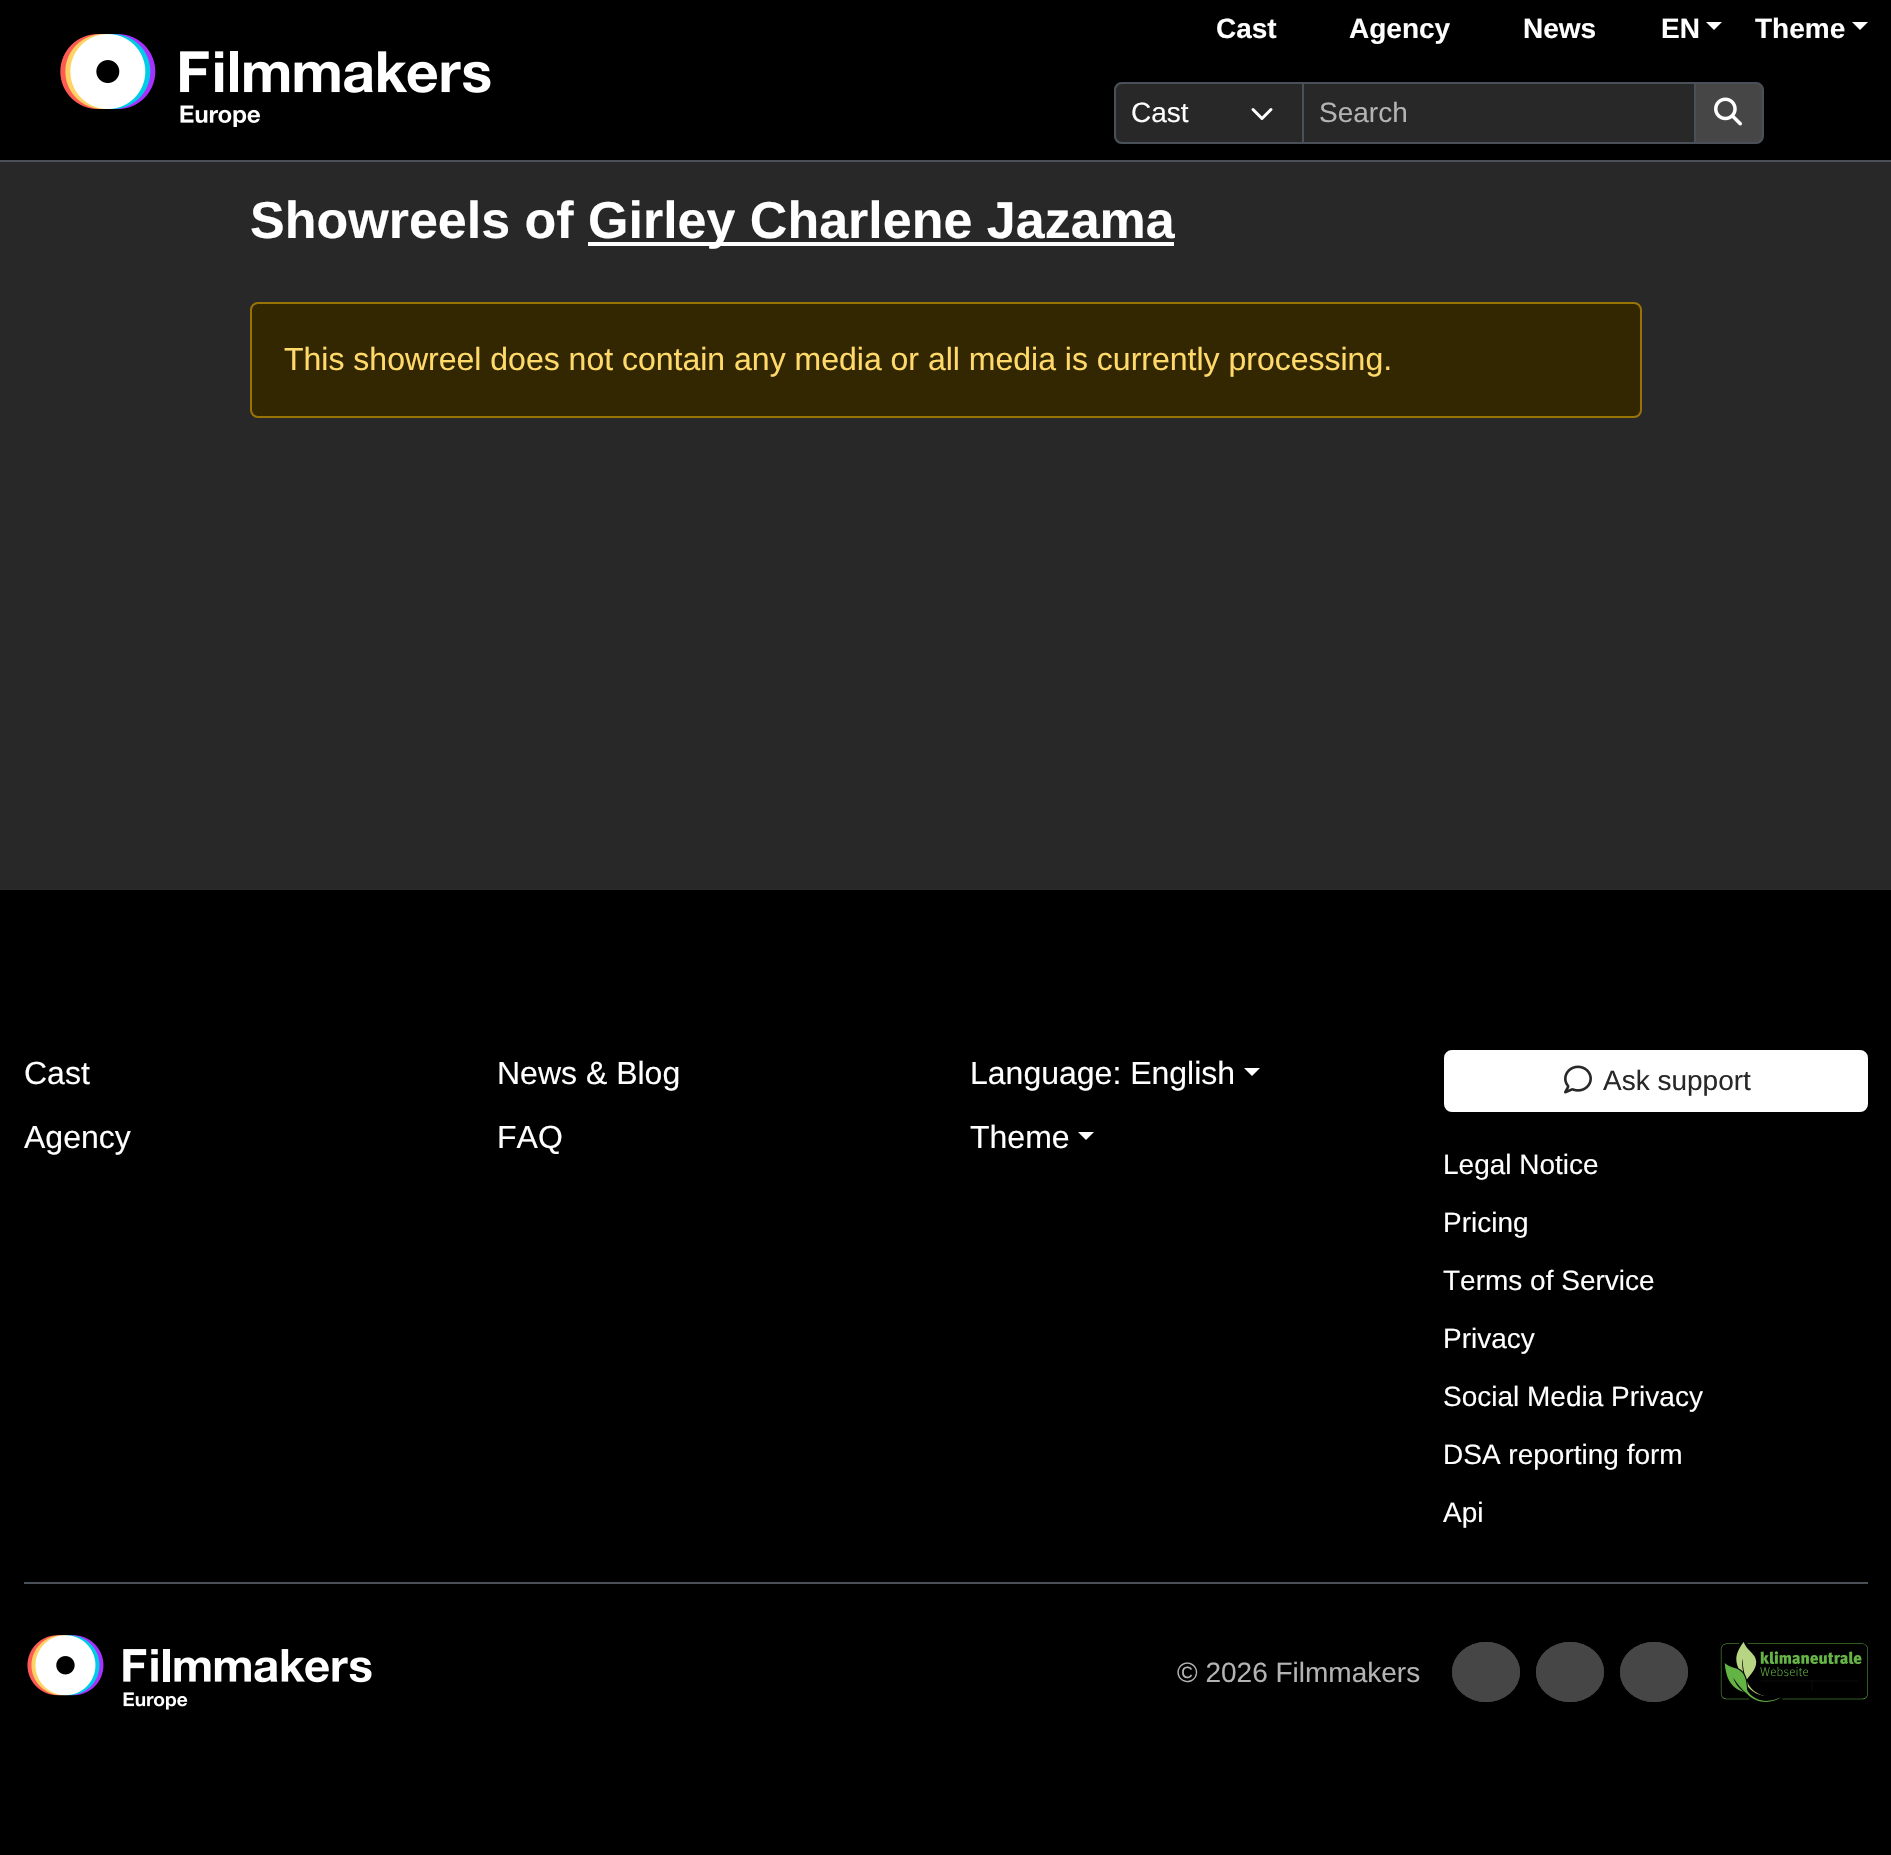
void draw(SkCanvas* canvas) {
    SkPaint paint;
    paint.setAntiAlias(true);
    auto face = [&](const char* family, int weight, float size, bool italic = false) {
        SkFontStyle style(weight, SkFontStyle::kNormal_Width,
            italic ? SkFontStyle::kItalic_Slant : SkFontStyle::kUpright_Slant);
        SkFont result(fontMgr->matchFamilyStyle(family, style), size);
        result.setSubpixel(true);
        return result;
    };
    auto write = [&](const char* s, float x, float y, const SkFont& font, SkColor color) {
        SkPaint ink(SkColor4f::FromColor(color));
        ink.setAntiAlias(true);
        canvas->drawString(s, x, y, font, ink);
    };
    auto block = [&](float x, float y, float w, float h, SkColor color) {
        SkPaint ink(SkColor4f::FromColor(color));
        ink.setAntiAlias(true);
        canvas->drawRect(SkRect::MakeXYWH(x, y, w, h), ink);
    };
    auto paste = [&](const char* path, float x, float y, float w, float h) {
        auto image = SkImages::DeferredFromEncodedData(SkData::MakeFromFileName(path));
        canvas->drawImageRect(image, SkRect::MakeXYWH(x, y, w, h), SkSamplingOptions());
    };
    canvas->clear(SkColorSetRGB(40, 40, 40));
    block(0, 0, 1891, 160, SK_ColorBLACK);
    block(0, 160, 1891, 2, SkColorSetRGB(73, 80, 87));
    paste("pic1.png", 60, 34, 431, 93);
    auto kFont1 = face("Liberation Sans", 700, 28);
    write("Cast", 1216, 38, kFont1, SK_ColorWHITE);
    write("Agency", 1349, 38, kFont1, SK_ColorWHITE);
    write("News", 1523, 38, kFont1, SK_ColorWHITE);
    write("EN", 1661, 38, kFont1, SK_ColorWHITE);
    paint.setColor(SK_ColorWHITE);
    canvas->drawPath(SkPathBuilder().moveTo(1706, 22).lineTo(1722, 22).lineTo(1714, 30).close().detach(), paint);
    write("Theme", 1755, 38, kFont1, SK_ColorWHITE);
    canvas->drawPath(SkPathBuilder().moveTo(1852, 22).lineTo(1868, 22).lineTo(1860, 30).close().detach(), paint);
    paint.setColor(SkColorSetRGB(40, 40, 40));
    canvas->drawPath(SkPathBuilder().moveTo(1122, 82).lineTo(1304, 82).lineTo(1304, 144).lineTo(1122, 144).cubicTo(1117.5f, 144, 1114, 140.5f, 1114, 136).lineTo(1114, 90).cubicTo(1114, 85.5f, 1117.5f, 82, 1122, 82).close().detach(), paint);
    paint.setStyle(SkPaint::kStroke_Style);
    paint.setStrokeWidth(3);
    paint.setStrokeCap(SkPaint::kRound_Cap);
    paint.setStrokeJoin(SkPaint::kRound_Join);
    paint.setColor(SK_ColorWHITE);
    canvas->drawPath(SkPathBuilder().moveTo(1253, 109.5f).lineTo(1262, 118.5f).lineTo(1271, 109.5f).detach(), paint);
    paint.setStrokeWidth(2);
    paint.setStrokeCap(SkPaint::kButt_Cap);
    paint.setStrokeJoin(SkPaint::kMiter_Join);
    paint.setColor(SkColorSetRGB(73, 80, 87));
    canvas->drawPath(SkPathBuilder().moveTo(1122, 83).lineTo(1303, 83).lineTo(1303, 143).lineTo(1122, 143).cubicTo(1118, 143, 1115, 140, 1115, 136).lineTo(1115, 90).cubicTo(1115, 86, 1118, 83, 1122, 83).close().detach(), paint);
    auto kFont2 = face("Liberation Sans", 400, 28);
    write("Cast", 1131, 122, kFont2, SK_ColorWHITE);
    paint.setStyle(SkPaint::kFill_Style);
    paint.setColor(SkColorSetRGB(40, 40, 40));
    canvas->drawRect(SkRect::MakeXYWH(1303, 83, 392, 60), paint);
    paint.setStyle(SkPaint::kStroke_Style);
    paint.setColor(SkColorSetRGB(73, 80, 87));
    canvas->drawRect(SkRect::MakeXYWH(1303, 83, 392, 60), paint);
    write("Search", 1319, 122, kFont2, SkColorSetRGB(179, 179, 179));
    paint.setStyle(SkPaint::kFill_Style);
    paint.setColor(SkColorSetRGB(70, 70, 70));
    canvas->drawPath(SkPathBuilder().moveTo(1695, 83).lineTo(1756, 83).cubicTo(1760, 83, 1763, 86, 1763, 90).lineTo(1763, 136).cubicTo(1763, 140, 1760, 143, 1756, 143).lineTo(1695, 143).close().detach(), paint);
    paint.setStyle(SkPaint::kStroke_Style);
    paint.setColor(SkColorSetRGB(73, 80, 87));
    canvas->drawPath(SkPathBuilder().moveTo(1695, 83).lineTo(1756, 83).cubicTo(1760, 83, 1763, 86, 1763, 90).lineTo(1763, 136).cubicTo(1763, 140, 1760, 143, 1756, 143).lineTo(1695, 143).close().detach(), paint);
    paste("pic2.png", 1714, 97, 28, 29);
    auto kFont3 = face("Liberation Sans", 700, 52);
    write("Showreels of", 250, 238, kFont3, SK_ColorWHITE);
    block(588, 242, 586, 4, SK_ColorWHITE);
    write("Girley Charlene Jazama", 588, 238, kFont3, SK_ColorWHITE);
    paint.setStyle(SkPaint::kFill_Style);
    paint.setColor(SkColorSetRGB(51, 39, 1));
    canvas->drawRoundRect(SkRect::MakeXYWH(251, 303, 1390, 114), 7, 7, paint);
    paint.setStyle(SkPaint::kStroke_Style);
    paint.setColor(SkColorSetRGB(153, 116, 4));
    canvas->drawRoundRect(SkRect::MakeXYWH(251, 303, 1390, 114), 7, 7, paint);
    auto kFont4 = face("Liberation Sans", 400, 32);
    write("This showreel does not contain any media or all media is currently processing.", 284, 370, kFont4, SkColorSetRGB(255, 218, 106));
    block(0, 890, 1891, 965, SK_ColorBLACK);
    write("Cast", 24, 1084, kFont4, SK_ColorWHITE);
    write("Agency", 24, 1148, kFont4, SK_ColorWHITE);
    write("News & Blog", 497, 1084, kFont4, SK_ColorWHITE);
    write("FAQ", 497, 1148, kFont4, SK_ColorWHITE);
    write("Language: English", 970, 1084, kFont4, SK_ColorWHITE);
    paint.setStyle(SkPaint::kFill_Style);
    paint.setColor(SK_ColorWHITE);
    canvas->drawPath(SkPathBuilder().moveTo(1244, 1068).lineTo(1260, 1068).lineTo(1252, 1076).close().detach(), paint);
    write("Theme", 970, 1148, kFont4, SK_ColorWHITE);
    canvas->drawPath(SkPathBuilder().moveTo(1078, 1132).lineTo(1094, 1132).lineTo(1086, 1140).close().detach(), paint);
    canvas->drawRoundRect(SkRect::MakeXYWH(1445, 1051, 422, 60), 7, 7, paint);
    paint.setStyle(SkPaint::kStroke_Style);
    canvas->drawRoundRect(SkRect::MakeXYWH(1445, 1051, 422, 60), 7, 7, paint);
    paste("pic3.png", 1564, 1065, 28, 29);
    write("Ask support", 1603, 1090, kFont2, SkColorSetRGB(40, 40, 40));
    write("Legal Notice", 1443, 1174, kFont2, SK_ColorWHITE);
    write("Pricing", 1443, 1232, kFont2, SK_ColorWHITE);
    write("Terms of Service", 1443, 1290, kFont2, SK_ColorWHITE);
    write("Privacy", 1443, 1348, kFont2, SK_ColorWHITE);
    write("Social Media Privacy", 1443, 1406, kFont2, SK_ColorWHITE);
    write("DSA reporting form", 1443, 1464, kFont2, SK_ColorWHITE);
    write("Api", 1443, 1522, kFont2, SK_ColorWHITE);
    block(24, 1582, 1844, 2, SkColorSetRGB(73, 80, 87));
    paste("pic4.png", 27, 1635, 345, 75);
    write("© 2026 Filmmakers", 1177, 1682, kFont2, SkColorSetRGB(179, 179, 179));
    paint.setStyle(SkPaint::kFill_Style);
    paint.setColor(SkColorSetRGB(70, 70, 70));
    canvas->drawOval(SkRect::MakeXYWH(1452, 1642, 68, 60), paint);
    paint.setStyle(SkPaint::kStroke_Style);
    canvas->drawPath(SkPathBuilder().moveTo(1486, 1643).cubicTo(1504, 1643, 1519, 1656, 1519, 1672).cubicTo(1519, 1688, 1504, 1701, 1486, 1701).cubicTo(1468, 1701, 1453, 1688, 1453, 1672).cubicTo(1453, 1656, 1468, 1643, 1486, 1643).close().detach(), paint);
    paint.setStyle(SkPaint::kFill_Style);
    canvas->drawOval(SkRect::MakeXYWH(1536, 1642, 68, 60), paint);
    paint.setStyle(SkPaint::kStroke_Style);
    canvas->drawPath(SkPathBuilder().moveTo(1570, 1643).cubicTo(1588, 1643, 1603, 1656, 1603, 1672).cubicTo(1603, 1688, 1588, 1701, 1570, 1701).cubicTo(1552, 1701, 1537, 1688, 1537, 1672).cubicTo(1537, 1656, 1552, 1643, 1570, 1643).close().detach(), paint);
    paint.setStyle(SkPaint::kFill_Style);
    canvas->drawOval(SkRect::MakeXYWH(1620, 1642, 68, 60), paint);
    paint.setStyle(SkPaint::kStroke_Style);
    canvas->drawPath(SkPathBuilder().moveTo(1654, 1643).cubicTo(1672, 1643, 1687, 1656, 1687, 1672).cubicTo(1687, 1688, 1672, 1701, 1654, 1701).cubicTo(1636, 1701, 1621, 1688, 1621, 1672).cubicTo(1621, 1656, 1636, 1643, 1654, 1643).close().detach(), paint);
    paste("pic5.png", 1720, 1642, 148, 60);
}
